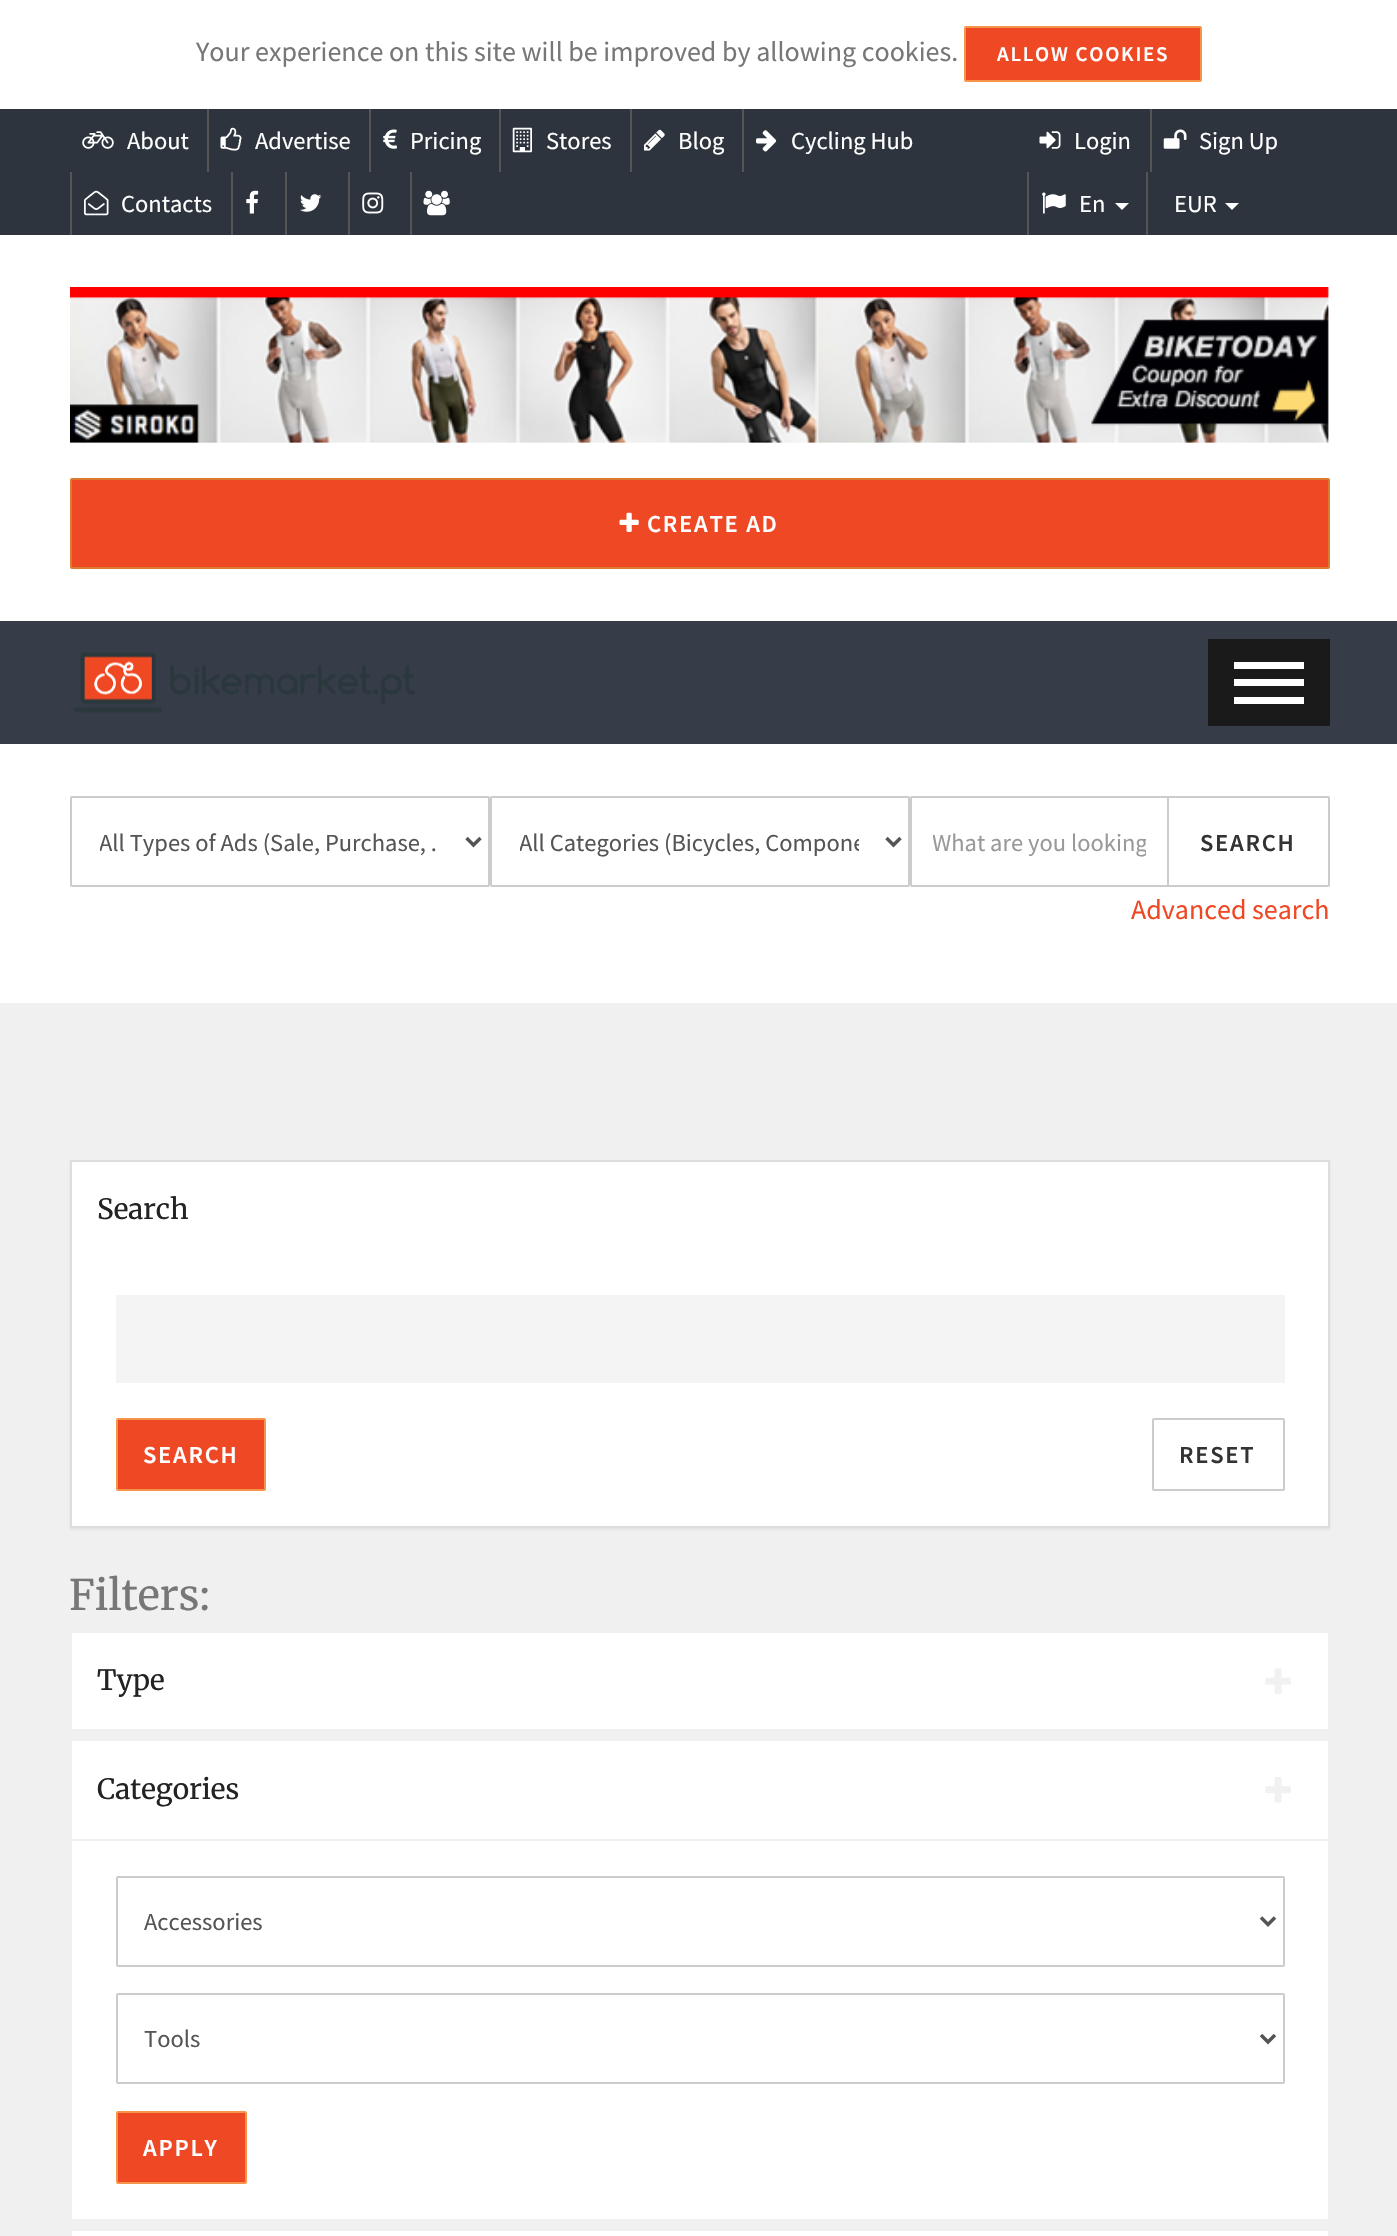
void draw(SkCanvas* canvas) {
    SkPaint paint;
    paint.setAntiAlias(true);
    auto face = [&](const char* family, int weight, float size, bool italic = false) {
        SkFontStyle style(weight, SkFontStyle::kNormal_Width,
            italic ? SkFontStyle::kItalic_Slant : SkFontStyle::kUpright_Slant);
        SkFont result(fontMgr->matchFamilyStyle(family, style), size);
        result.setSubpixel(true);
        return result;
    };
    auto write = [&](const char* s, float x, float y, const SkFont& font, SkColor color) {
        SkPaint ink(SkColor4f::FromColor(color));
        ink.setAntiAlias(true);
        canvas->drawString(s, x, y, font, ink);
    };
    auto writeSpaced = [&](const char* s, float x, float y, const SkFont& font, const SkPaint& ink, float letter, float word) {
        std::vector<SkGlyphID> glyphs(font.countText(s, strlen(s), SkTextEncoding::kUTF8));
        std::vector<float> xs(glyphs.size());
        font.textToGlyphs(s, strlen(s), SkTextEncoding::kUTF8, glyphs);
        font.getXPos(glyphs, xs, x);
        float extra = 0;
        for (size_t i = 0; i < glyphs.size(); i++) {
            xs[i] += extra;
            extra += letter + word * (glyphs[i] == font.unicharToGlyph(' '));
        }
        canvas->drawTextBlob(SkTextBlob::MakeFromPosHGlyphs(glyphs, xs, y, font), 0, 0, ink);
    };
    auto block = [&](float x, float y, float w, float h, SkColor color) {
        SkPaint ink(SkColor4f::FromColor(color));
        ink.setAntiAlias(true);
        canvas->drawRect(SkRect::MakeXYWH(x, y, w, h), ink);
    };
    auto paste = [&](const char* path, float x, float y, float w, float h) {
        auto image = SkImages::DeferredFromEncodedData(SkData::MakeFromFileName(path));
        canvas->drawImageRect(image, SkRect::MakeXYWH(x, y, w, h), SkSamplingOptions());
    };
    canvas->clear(SK_ColorWHITE);
    auto kFont1 = face("Source Sans Pro", 400, 28);
    write("Your experience on this site will be improved by allowing cookies.", 196, 61, kFont1, SkColorSetRGB(119, 119, 119));
    paint.setColor(SkColorSetRGB(239, 72, 36));
    canvas->drawRoundRect(SkRect::MakeXYWH(965, 27, 236, 54), 1, 1, paint);
    paint.setStyle(SkPaint::kStroke_Style);
    paint.setStrokeWidth(2);
    paint.setColor(SkColorSetRGB(246, 148, 74));
    canvas->drawRoundRect(SkRect::MakeXYWH(965, 27, 236, 54), 1, 1, paint);
    auto kFont2 = face("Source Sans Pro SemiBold", 600, 21);
    paint.setStyle(SkPaint::kFill_Style);
    paint.setColor(SK_ColorWHITE);
    writeSpaced("ALLOW COOKIES", 997, 61, kFont2, paint, 1.75f, 0);
    block(0, 109, 1397, 126, SkColorSetRGB(45, 52, 61));
    paste("pic1.png", 82, 131, 32, 18);
    auto kFont3 = face("Source Sans Pro", 400, 24.5f);
    write("About", 127, 149, kFont3, SK_ColorWHITE);
    block(207, 109, 2, 63, SkColorSetRGB(85, 85, 85));
    paste("pic2.png", 220, 127, 22, 24);
    write("Advertise", 255, 149, kFont3, SK_ColorWHITE);
    block(369, 109, 2, 63, SkColorSetRGB(85, 85, 85));
    paste("pic3.png", 383, 129, 15, 20);
    write("Pricing", 410, 149, kFont3, SK_ColorWHITE);
    block(499, 109, 2, 63, SkColorSetRGB(85, 85, 85));
    paste("pic4.png", 512, 127, 20, 26);
    write("Stores", 546, 149, kFont3, SK_ColorWHITE);
    block(630, 109, 2, 63, SkColorSetRGB(85, 85, 85));
    paste("pic5.png", 644, 129, 21, 22);
    write("Blog", 678, 149, kFont3, SK_ColorWHITE);
    block(742, 109, 2, 63, SkColorSetRGB(85, 85, 85));
    paste("pic6.png", 756, 130, 21, 22);
    write("Cycling Hub", 791, 149, kFont3, SK_ColorWHITE);
    block(70, 172, 2, 63, SkColorSetRGB(85, 85, 85));
    paste("pic7.png", 84, 190, 25, 26);
    write("Contacts", 121, 212, kFont3, SK_ColorWHITE);
    block(231, 172, 2, 63, SkColorSetRGB(85, 85, 85));
    paste("pic8.png", 246, 190, 13, 24);
    block(285, 172, 2, 63, SkColorSetRGB(85, 85, 85));
    paste("pic9.png", 300, 194, 22, 18);
    block(348, 172, 2, 63, SkColorSetRGB(85, 85, 85));
    paste("pic10.png", 362, 192, 22, 22);
    block(410, 172, 2, 63, SkColorSetRGB(85, 85, 85));
    paste("pic11.png", 423, 190, 27, 26);
    paste("pic12.png", 1039, 131, 22, 18);
    write("Login", 1074, 149, kFont3, SK_ColorWHITE);
    block(1150, 109, 2, 63, SkColorSetRGB(85, 85, 85));
    paste("pic13.png", 1163, 129, 24, 20);
    write("Sign Up", 1199, 149, kFont3, SK_ColorWHITE);
    block(1027, 172, 2, 63, SkColorSetRGB(85, 85, 85));
    paste("pic14.png", 1042, 192, 24, 22);
    write("En", 1079, 212, kFont3, SK_ColorWHITE);
    canvas->drawPath(SkPathBuilder().moveTo(1115, 203).lineTo(1129, 203).lineTo(1122, 210).close().detach(), paint);
    block(1146, 172, 2, 63, SkColorSetRGB(85, 85, 85));
    write("EUR", 1174, 212, kFont3, SK_ColorWHITE);
    canvas->drawPath(SkPathBuilder().moveTo(1225, 203).lineTo(1239, 203).lineTo(1232, 210).close().detach(), paint);
    paste("pic15.png", 70, 287, 1259, 156);
    paint.setColor(SkColorSetRGB(239, 72, 36));
    canvas->drawRoundRect(SkRect::MakeXYWH(71, 479, 1258, 89), 1, 1, paint);
    paint.setStyle(SkPaint::kStroke_Style);
    paint.setColor(SkColorSetRGB(220, 123, 48));
    canvas->drawRoundRect(SkRect::MakeXYWH(71, 479, 1258, 89), 1, 1, paint);
    paste("pic16.png", 619, 512, 20, 20);
    auto kFont4 = face("Source Sans Pro SemiBold", 600, 24.5f);
    paint.setStyle(SkPaint::kFill_Style);
    paint.setColor(SK_ColorWHITE);
    writeSpaced("CREATE AD", 647, 532, kFont4, paint, 1.75f, 0);
    block(0, 621, 1397, 123, SkColorSetRGB(54, 60, 72));
    paste("pic17.png", 74, 652, 341, 61);
    block(1208, 639, 122, 87, SkColorSetRGB(26, 26, 26));
    block(1234, 662, 70, 7, SK_ColorWHITE);
    block(1234, 679, 70, 7, SK_ColorWHITE);
    block(1234, 697, 70, 7, SK_ColorWHITE);
    paint.setStyle(SkPaint::kStroke_Style);
    paint.setColor(SkColorSetRGB(204, 204, 204));
    canvas->drawRoundRect(SkRect::MakeXYWH(71, 797, 418, 89), 1, 1, paint);
    paint.setStrokeWidth(3.5f);
    paint.setColor(SkColorSetRGB(85, 85, 85));
    canvas->drawPath(SkPathBuilder().moveTo(466.5f, 838).lineTo(473.5f, 845).lineTo(480.5f, 838).detach(), paint);
    canvas->save();
    canvas->clipRect(SkRect::MakeXYWH(100, 824, 339, 35));
    write("All Types of Ads (Sale, Purchase, .", 99, 851, kFont3, SkColorSetRGB(85, 85, 85));
    canvas->restore();
    paint.setStrokeWidth(2);
    paint.setColor(SkColorSetRGB(204, 204, 204));
    canvas->drawRoundRect(SkRect::MakeXYWH(491, 797, 418, 89), 1, 1, paint);
    paint.setStrokeWidth(3.5f);
    paint.setColor(SkColorSetRGB(85, 85, 85));
    canvas->drawPath(SkPathBuilder().moveTo(886.5f, 838).lineTo(893.5f, 845).lineTo(900.5f, 838).detach(), paint);
    canvas->save();
    canvas->clipRect(SkRect::MakeXYWH(520, 824, 339, 35));
    write("All Categories (Bicycles, Compone", 519, 851, kFont3, SkColorSetRGB(85, 85, 85));
    canvas->restore();
    paint.setStrokeWidth(2);
    paint.setColor(SkColorSetRGB(204, 204, 204));
    canvas->drawPath(SkPathBuilder().moveTo(912, 797).lineTo(1168, 797).lineTo(1168, 886).lineTo(912, 886).cubicTo(911.5f, 886, 911, 885.5f, 911, 885).lineTo(911, 798).cubicTo(911, 797.5f, 911.5f, 797, 912, 797).close().detach(), paint);
    canvas->save();
    canvas->clipRect(SkRect::MakeXYWH(933, 826, 213, 32));
    write("What are you looking", 932, 851, kFont3, SkColorSetRGB(153, 153, 153));
    canvas->restore();
    paint.setStyle(SkPaint::kFill_Style);
    paint.setColor(SK_ColorWHITE);
    canvas->drawPath(SkPathBuilder().moveTo(1168, 797).lineTo(1328, 797).cubicTo(1328.5f, 797, 1329, 797.5f, 1329, 798).lineTo(1329, 885).cubicTo(1329, 885.5f, 1328.5f, 886, 1328, 886).lineTo(1168, 886).close().detach(), paint);
    paint.setStyle(SkPaint::kStroke_Style);
    paint.setColor(SkColorSetRGB(204, 204, 204));
    canvas->drawPath(SkPathBuilder().moveTo(1168, 797).lineTo(1328, 797).cubicTo(1328.5f, 797, 1329, 797.5f, 1329, 798).lineTo(1329, 885).cubicTo(1329, 885.5f, 1328.5f, 886, 1328, 886).lineTo(1168, 886).close().detach(), paint);
    paint.setStyle(SkPaint::kFill_Style);
    paint.setColor(SkColorSetRGB(51, 51, 51));
    writeSpaced("SEARCH", 1200, 851, kFont4, paint, 1.75f, 0);
    write("Advanced search", 1131, 919, kFont1, SkColorSetRGB(239, 72, 36));
    block(0, 1003, 1397, 1233, SkColorSetRGB(240, 240, 240));
    paint.setColor(SkColorSetARGB(13, 0, 0, 0));
    paint.setMaskFilter(SkMaskFilter::MakeBlur(kNormal_SkBlurStyle, 1));
    canvas->drawRect(SkRect::MakeXYWH(70, 1162, 1260, 368), paint);
    paint.setMaskFilter(nullptr);
    paint.setColor(SK_ColorWHITE);
    canvas->drawRect(SkRect::MakeXYWH(71, 1161, 1258, 366), paint);
    paint.setStyle(SkPaint::kStroke_Style);
    paint.setColor(SkColorSetRGB(221, 221, 221));
    canvas->drawRect(SkRect::MakeXYWH(71, 1161, 1258, 366), paint);
    auto kFont5 = face("Merriweather", 400, 28);
    write("Search", 97, 1219, kFont5, SkColorSetRGB(35, 35, 35));
    block(116, 1295, 1169, 88, SkColorSetRGB(244, 244, 244));
    paint.setStyle(SkPaint::kFill_Style);
    paint.setColor(SkColorSetRGB(239, 72, 36));
    canvas->drawRoundRect(SkRect::MakeXYWH(117, 1419, 148, 71), 1, 1, paint);
    paint.setStyle(SkPaint::kStroke_Style);
    paint.setColor(SkColorSetRGB(246, 148, 74));
    canvas->drawRoundRect(SkRect::MakeXYWH(117, 1419, 148, 71), 1, 1, paint);
    paint.setStyle(SkPaint::kFill_Style);
    paint.setColor(SK_ColorWHITE);
    writeSpaced("SEARCH", 143, 1463, kFont4, paint, 1.75f, 0);
    paint.setStyle(SkPaint::kStroke_Style);
    paint.setColor(SkColorSetRGB(204, 204, 204));
    canvas->drawRoundRect(SkRect::MakeXYWH(1153, 1419, 131, 71), 1, 1, paint);
    paint.setStyle(SkPaint::kFill_Style);
    paint.setColor(SkColorSetRGB(51, 51, 51));
    writeSpaced("RESET", 1179, 1463, kFont4, paint, 1.75f, 0);
    auto kFont6 = face("Merriweather", 400, 42);
    write("Filters:", 69, 1610, kFont6, SkColorSetRGB(119, 119, 119));
    block(72, 1633, 1256, 96, SK_ColorWHITE);
    write("Type", 97, 1690, kFont5, SkColorSetRGB(35, 35, 35));
    paste("pic18.png", 1265, 1668, 26, 26);
    block(72, 1841, 1256, 378, SK_ColorWHITE);
    block(72, 1741, 1256, 98, SK_ColorWHITE);
    write("Categories", 97, 1799, kFont5, SkColorSetRGB(35, 35, 35));
    paste("pic19.png", 1265, 1777, 26, 26);
    paint.setStyle(SkPaint::kStroke_Style);
    paint.setColor(SkColorSetRGB(204, 204, 204));
    canvas->drawRoundRect(SkRect::MakeXYWH(117, 1877, 1167, 89), 1, 1, paint);
    paint.setStrokeWidth(3.5f);
    paint.setColor(SkColorSetRGB(85, 85, 85));
    canvas->drawPath(SkPathBuilder().moveTo(1261, 1917.5f).lineTo(1268, 1924.5f).lineTo(1275, 1917.5f).detach(), paint);
    write("Accessories", 144, 1930, kFont3, SkColorSetRGB(85, 85, 85));
    paint.setStrokeWidth(2);
    paint.setColor(SkColorSetRGB(204, 204, 204));
    canvas->drawRoundRect(SkRect::MakeXYWH(117, 1994, 1167, 89), 1, 1, paint);
    paint.setStrokeWidth(3.5f);
    paint.setColor(SkColorSetRGB(85, 85, 85));
    canvas->drawPath(SkPathBuilder().moveTo(1261, 2035).lineTo(1268, 2042).lineTo(1275, 2035).detach(), paint);
    write("Tools", 144, 2047, kFont3, SkColorSetRGB(85, 85, 85));
    paint.setStyle(SkPaint::kFill_Style);
    paint.setColor(SkColorSetRGB(239, 72, 36));
    canvas->drawRoundRect(SkRect::MakeXYWH(117, 2112, 129, 71), 1, 1, paint);
    paint.setStyle(SkPaint::kStroke_Style);
    paint.setStrokeWidth(2);
    paint.setColor(SkColorSetRGB(246, 148, 74));
    canvas->drawRoundRect(SkRect::MakeXYWH(117, 2112, 129, 71), 1, 1, paint);
    paint.setStyle(SkPaint::kFill_Style);
    paint.setColor(SK_ColorWHITE);
    writeSpaced("APPLY", 143, 2156, kFont4, paint, 1.75f, 0);
    block(72, 2231, 1256, 5, SK_ColorWHITE);
}
